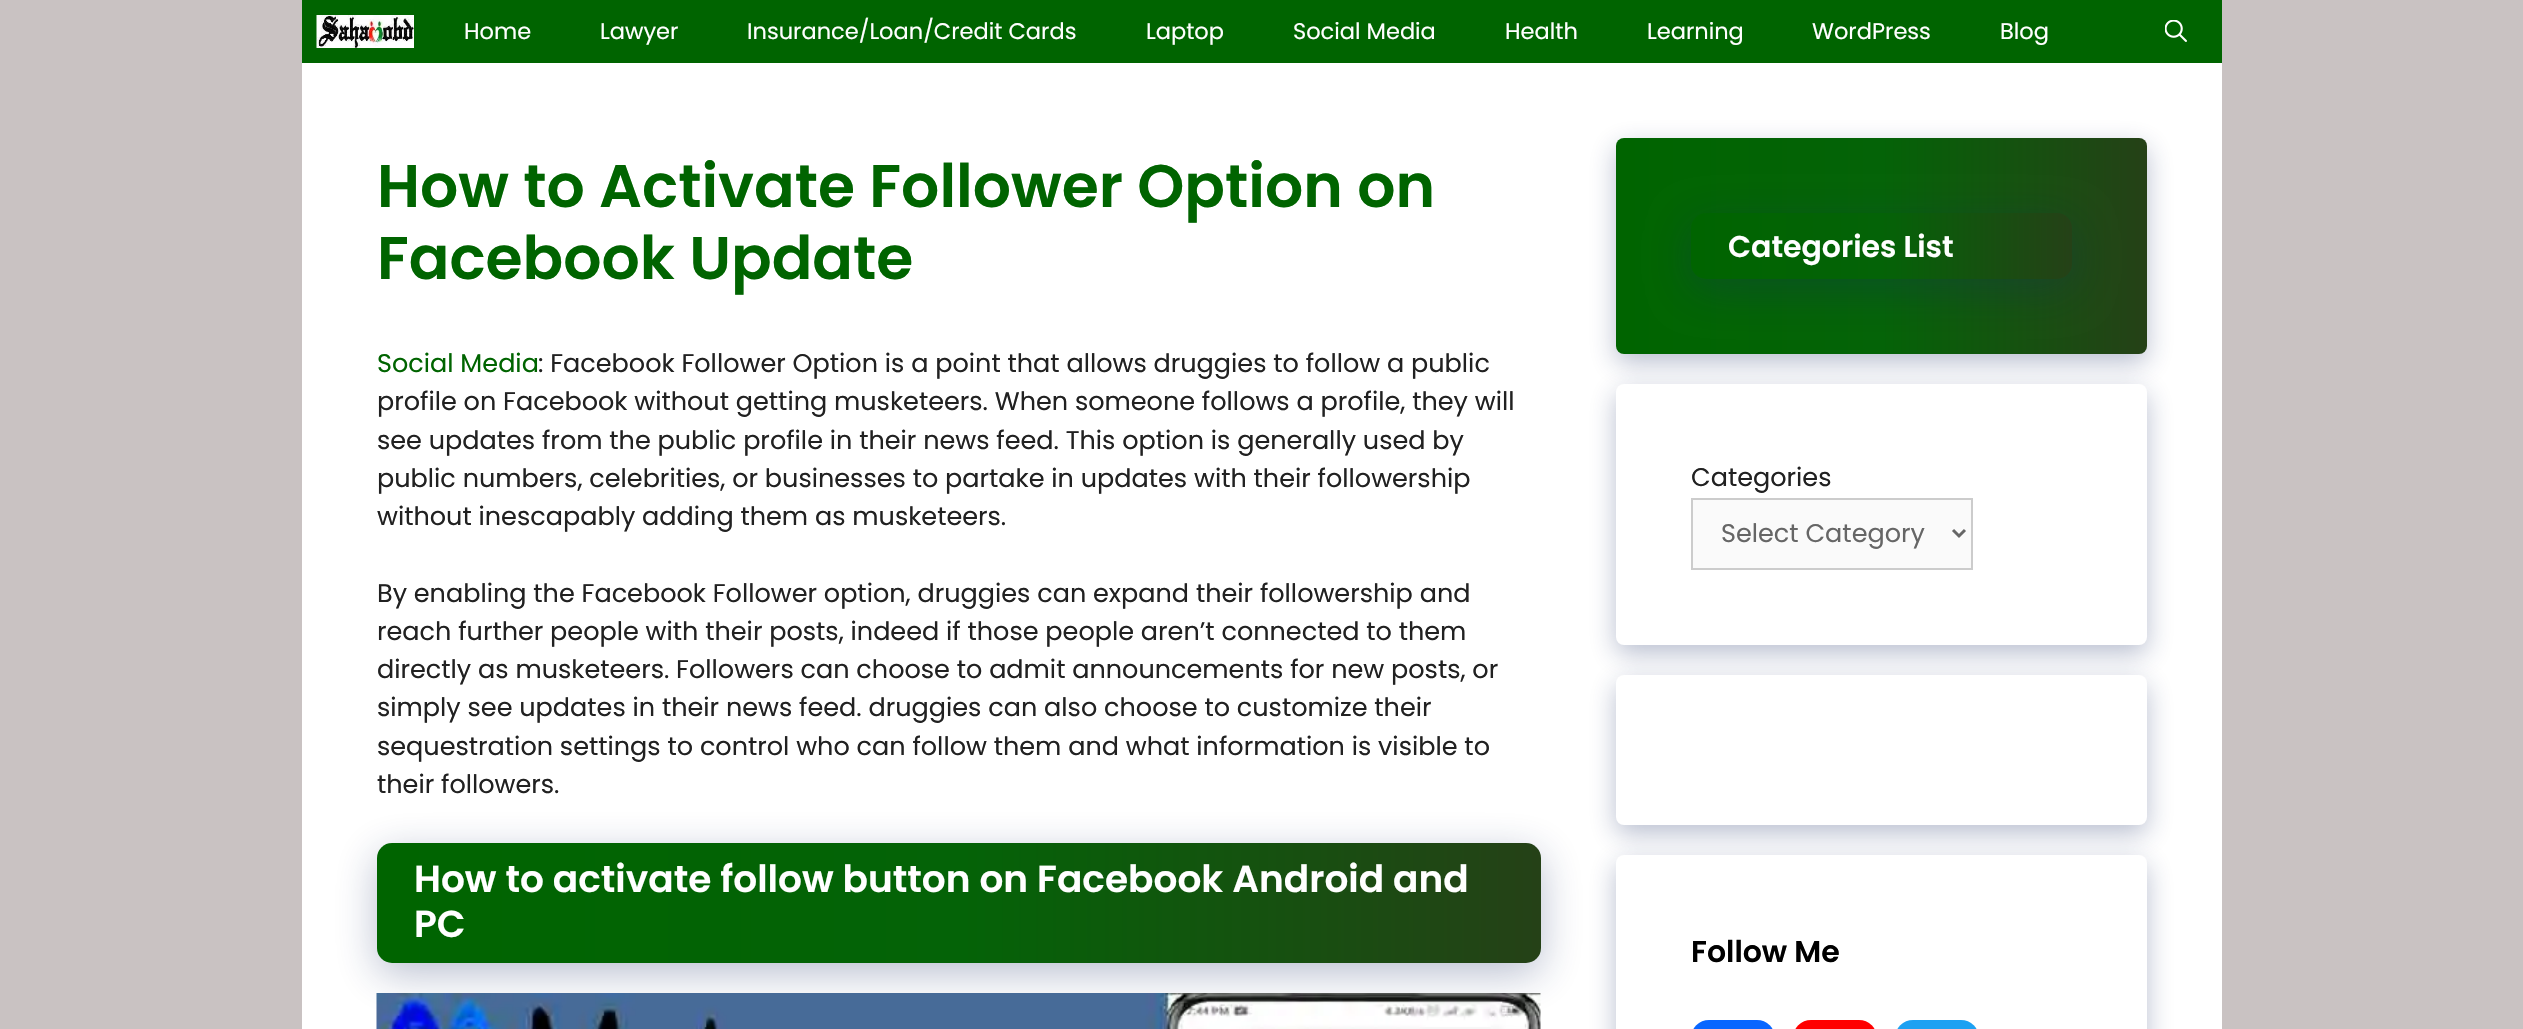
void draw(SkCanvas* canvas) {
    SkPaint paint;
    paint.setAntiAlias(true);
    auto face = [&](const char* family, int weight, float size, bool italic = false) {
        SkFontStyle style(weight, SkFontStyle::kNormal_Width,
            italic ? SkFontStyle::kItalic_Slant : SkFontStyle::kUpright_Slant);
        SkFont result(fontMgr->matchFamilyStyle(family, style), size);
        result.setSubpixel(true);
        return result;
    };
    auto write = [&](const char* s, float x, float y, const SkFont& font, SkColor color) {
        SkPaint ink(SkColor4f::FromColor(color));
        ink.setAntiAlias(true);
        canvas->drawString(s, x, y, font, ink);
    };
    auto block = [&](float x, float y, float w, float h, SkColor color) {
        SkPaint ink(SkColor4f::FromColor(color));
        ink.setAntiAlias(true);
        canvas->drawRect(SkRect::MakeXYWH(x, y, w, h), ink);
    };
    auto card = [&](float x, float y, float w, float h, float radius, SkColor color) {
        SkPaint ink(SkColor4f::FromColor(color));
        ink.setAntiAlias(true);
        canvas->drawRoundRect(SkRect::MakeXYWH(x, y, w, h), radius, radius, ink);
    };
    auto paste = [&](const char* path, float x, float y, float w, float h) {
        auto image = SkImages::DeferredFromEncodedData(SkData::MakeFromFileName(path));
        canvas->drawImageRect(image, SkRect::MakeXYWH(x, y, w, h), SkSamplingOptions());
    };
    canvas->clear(SkColorSetRGB(201, 194, 194));
    block(302, 0, 1920, 63, SkColorSetRGB(0, 100, 0));
    paste("pic1.png", 316, 15, 98, 33);
    auto kFont1 = face("Poppins", 400, 22.5f);
    write("Home", 464, 39, kFont1, SK_ColorWHITE);
    write("Lawyer", 600, 39, kFont1, SK_ColorWHITE);
    write("Insurance/Loan/Credit Cards", 747, 39, kFont1, SK_ColorWHITE);
    write("Laptop", 1146, 39, kFont1, SK_ColorWHITE);
    write("Social Media", 1293, 39, kFont1, SK_ColorWHITE);
    write("Health", 1505, 39, kFont1, SK_ColorWHITE);
    write("Learning", 1647, 39, kFont1, SK_ColorWHITE);
    write("WordPress", 1812, 39, kFont1, SK_ColorWHITE);
    write("Blog", 2000, 39, kFont1, SK_ColorWHITE);
    paste("pic2.png", 2165, 20, 22, 22);
    block(302, 63, 1920, 966, SK_ColorWHITE);
    auto kFont2 = face("Poppins", 600, 60);
    write("How to Activate Follower Option on", 377, 207, kFont2, SkColorSetRGB(0, 100, 0));
    write("Facebook Update", 377, 279, kFont2, SkColorSetRGB(0, 100, 0));
    auto kFont3 = face("Poppins", 400, 25.5f);
    write("Social Media", 377, 372, kFont3, SkColorSetRGB(0, 100, 0));
    write(": Facebook Follower Option is a point that allows druggies to follow a public", 538, 372, kFont3, SkColorSetRGB(33, 33, 33));
    write("profile on Facebook without getting musketeers. When someone follows a profile, they will", 377, 410, kFont3, SkColorSetRGB(33, 33, 33));
    write("see updates from the public profile in their news feed. This option is generally used by", 377, 449, kFont3, SkColorSetRGB(33, 33, 33));
    write("public numbers, celebrities, or businesses to partake in updates with their followership", 377, 487, kFont3, SkColorSetRGB(33, 33, 33));
    write("without inescapably adding them as musketeers.", 377, 525, kFont3, SkColorSetRGB(33, 33, 33));
    write("By enabling the Facebook Follower option, druggies can expand their followership and", 377, 602, kFont3, SkColorSetRGB(33, 33, 33));
    write("reach further people with their posts, indeed if those people aren’t connected to them", 377, 640, kFont3, SkColorSetRGB(33, 33, 33));
    write("directly as musketeers. Followers can choose to admit announcements for new posts, or", 377, 678, kFont3, SkColorSetRGB(33, 33, 33));
    write("simply see updates in their news feed. druggies can also choose to customize their", 377, 716, kFont3, SkColorSetRGB(33, 33, 33));
    write("sequestration settings to control who can follow them and what information is visible to", 377, 755, kFont3, SkColorSetRGB(33, 33, 33));
    paint.setColor(SkColorSetARGB(77, 23, 43, 99));
    paint.setMaskFilter(SkMaskFilter::MakeBlur(kNormal_SkBlurStyle, 21));
    canvas->drawRoundRect(SkRect::MakeXYWH(377, 854, 1164, 120), 15, 15, paint);
    paint.setMaskFilter(nullptr);
    write("their followers.", 377, 793, kFont3, SkColorSetRGB(33, 33, 33));
    {
        const SkColor colors[] = {SkColorSetRGB(0, 100, 0), SkColorSetRGB(4, 99, 7), SkColorSetRGB(37, 65, 23)};
        const float stops[] = {0, 0.5f, 1};
        const SkPoint ends[] = {{377, 903}, {1541, 903}};
        paint.setShader(SkGradientShader::MakeLinear(ends, colors, stops, 3, SkTileMode::kClamp));
        paint.setAlpha(255);
    }
    canvas->drawRoundRect(SkRect::MakeXYWH(377, 843, 1164, 120), 15, 15, paint);
    auto kFont4 = face("Poppins", 600, 37.5f);
    write("How to activate follow button on Facebook Android and", 414, 892, kFont4, SK_ColorWHITE);
    write("PC", 414, 937, kFont4, SK_ColorWHITE);
    paste("pic3.png", 376, 993, 1165, 36);
    paint.setShader(nullptr);
    paint.setColor(SkColorSetARGB(77, 23, 43, 99));
    paint.setMaskFilter(SkMaskFilter::MakeBlur(kNormal_SkBlurStyle, 13.5f));
    canvas->drawRoundRect(SkRect::MakeXYWH(1616, 147, 531, 216), 8, 8, paint);
    paint.setMaskFilter(nullptr);
    {
        const SkColor colors[] = {SkColorSetRGB(0, 100, 0), SkColorSetRGB(4, 99, 7), SkColorSetRGB(37, 65, 23)};
        const float stops[] = {0, 0.5f, 1};
        const SkPoint ends[] = {{1616, 246}, {2147, 246}};
        paint.setShader(SkGradientShader::MakeLinear(ends, colors, stops, 3, SkTileMode::kClamp));
        paint.setAlpha(255);
    }
    canvas->drawRoundRect(SkRect::MakeXYWH(1616, 138, 531, 216), 8, 8, paint);
    paint.setShader(nullptr);
    paint.setColor(SkColorSetARGB(77, 23, 43, 99));
    paint.setMaskFilter(SkMaskFilter::MakeBlur(kNormal_SkBlurStyle, 21));
    canvas->drawRoundRect(SkRect::MakeXYWH(1691, 224, 381, 66), 15, 15, paint);
    paint.setMaskFilter(nullptr);
    {
        const SkColor colors[] = {SkColorSetRGB(0, 100, 0), SkColorSetRGB(4, 99, 7), SkColorSetRGB(37, 65, 23)};
        const float stops[] = {0, 0.5f, 1};
        const SkPoint ends[] = {{1691, 246}, {2072, 246}};
        paint.setShader(SkGradientShader::MakeLinear(ends, colors, stops, 3, SkTileMode::kClamp));
        paint.setAlpha(255);
    }
    canvas->drawRoundRect(SkRect::MakeXYWH(1691, 213, 381, 66), 15, 15, paint);
    auto kFont5 = face("Poppins", 600, 30);
    write("Categories List", 1728, 257, kFont5, SK_ColorWHITE);
    paint.setShader(nullptr);
    paint.setColor(SkColorSetARGB(77, 23, 43, 99));
    paint.setMaskFilter(SkMaskFilter::MakeBlur(kNormal_SkBlurStyle, 13.5f));
    canvas->drawRoundRect(SkRect::MakeXYWH(1616, 393, 531, 261), 8, 8, paint);
    paint.setMaskFilter(nullptr);
    card(1616, 384, 531, 261, 8, SK_ColorWHITE);
    write("Categories", 1691, 486, kFont3, SkColorSetRGB(33, 33, 33));
    paint.setColor(SkColorSetRGB(250, 250, 250));
    canvas->drawRect(SkRect::MakeXYWH(1692, 499, 280, 70), paint);
    paint.setStyle(SkPaint::kStroke_Style);
    paint.setStrokeWidth(2);
    paint.setColor(SkColorSetRGB(204, 204, 204));
    canvas->drawRect(SkRect::MakeXYWH(1692, 499, 280, 70), paint);
    paint.setStrokeWidth(3);
    paint.setColor(SkColorSetRGB(102, 102, 102));
    canvas->drawPath(SkPathBuilder().moveTo(1953, 530).lineTo(1959, 536).lineTo(1965, 530).detach(), paint);
    write("Select Category", 1721, 542, kFont3, SkColorSetRGB(102, 102, 102));
    paint.setStyle(SkPaint::kFill_Style);
    paint.setColor(SkColorSetARGB(77, 23, 43, 99));
    paint.setMaskFilter(SkMaskFilter::MakeBlur(kNormal_SkBlurStyle, 13.5f));
    canvas->drawRoundRect(SkRect::MakeXYWH(1616, 684, 531, 150), 8, 8, paint);
    paint.setMaskFilter(nullptr);
    card(1616, 675, 531, 150, 8, SK_ColorWHITE);
    paint.setMaskFilter(SkMaskFilter::MakeBlur(kNormal_SkBlurStyle, 13.5f));
    canvas->drawRoundRect(SkRect::MakeXYWH(1616, 864, 531, 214), 8, 8, paint);
    paint.setMaskFilter(nullptr);
    card(1616, 855, 531, 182, 8, SK_ColorWHITE);
    write("Follow Me", 1691, 962, kFont5, SK_ColorBLACK);
    card(1691, 1020, 84, 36, 27, SkColorSetRGB(8, 102, 255));
    card(1793, 1020, 84, 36, 27, SkColorSetRGB(255, 0, 0));
    card(1895, 1020, 84, 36, 27, SkColorSetRGB(29, 161, 242));
}
